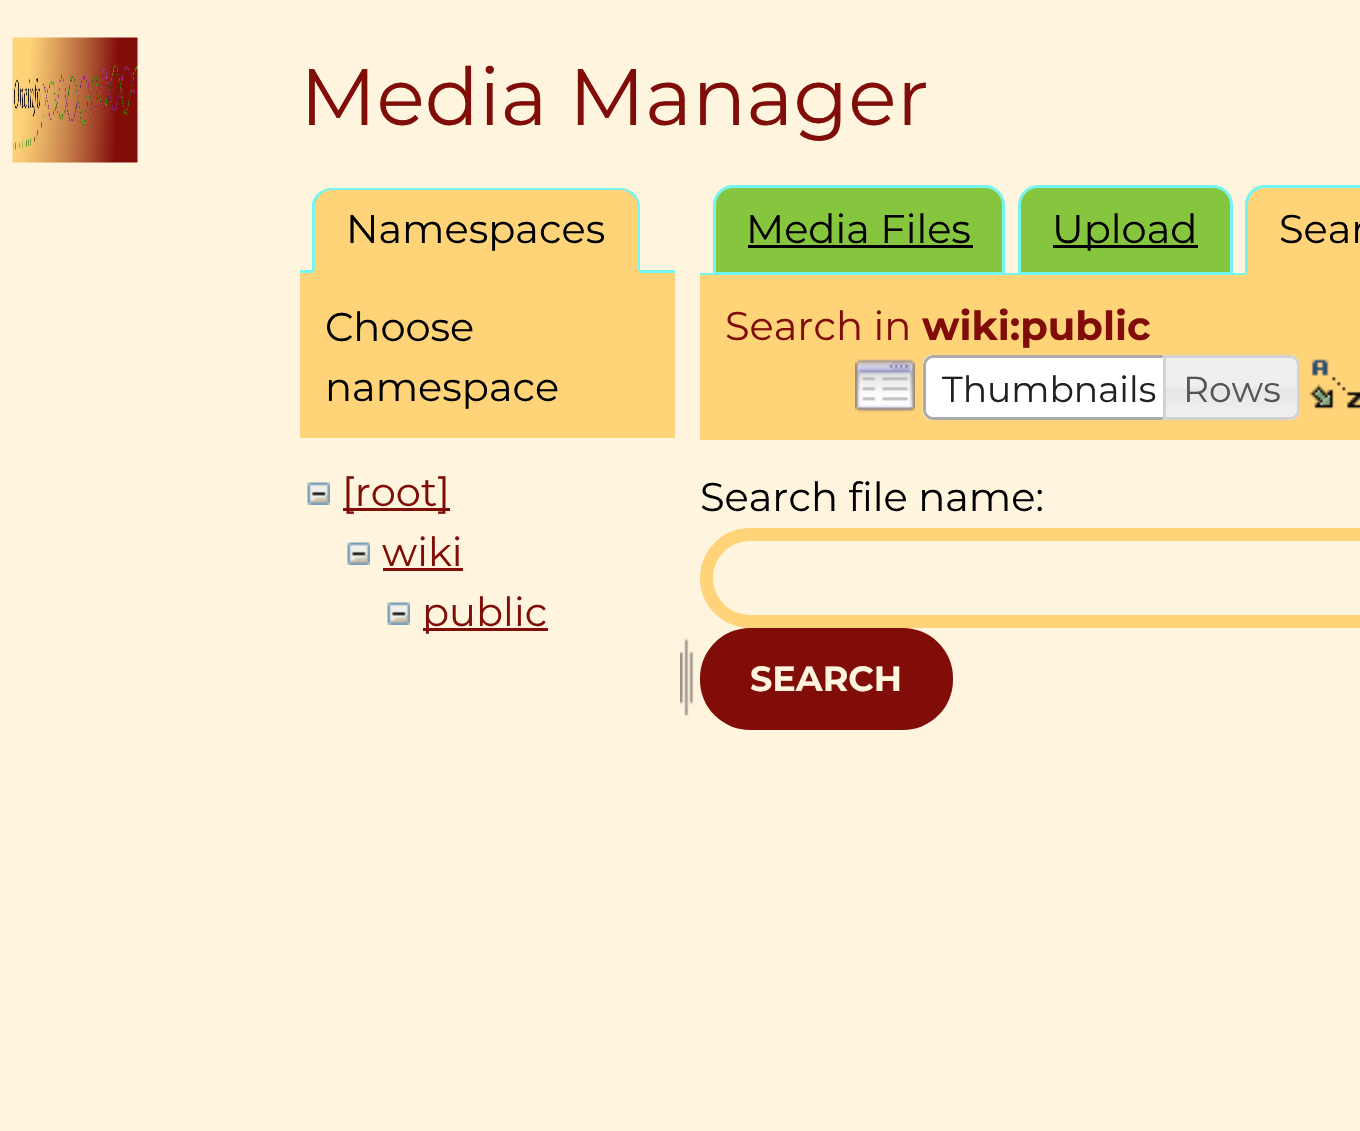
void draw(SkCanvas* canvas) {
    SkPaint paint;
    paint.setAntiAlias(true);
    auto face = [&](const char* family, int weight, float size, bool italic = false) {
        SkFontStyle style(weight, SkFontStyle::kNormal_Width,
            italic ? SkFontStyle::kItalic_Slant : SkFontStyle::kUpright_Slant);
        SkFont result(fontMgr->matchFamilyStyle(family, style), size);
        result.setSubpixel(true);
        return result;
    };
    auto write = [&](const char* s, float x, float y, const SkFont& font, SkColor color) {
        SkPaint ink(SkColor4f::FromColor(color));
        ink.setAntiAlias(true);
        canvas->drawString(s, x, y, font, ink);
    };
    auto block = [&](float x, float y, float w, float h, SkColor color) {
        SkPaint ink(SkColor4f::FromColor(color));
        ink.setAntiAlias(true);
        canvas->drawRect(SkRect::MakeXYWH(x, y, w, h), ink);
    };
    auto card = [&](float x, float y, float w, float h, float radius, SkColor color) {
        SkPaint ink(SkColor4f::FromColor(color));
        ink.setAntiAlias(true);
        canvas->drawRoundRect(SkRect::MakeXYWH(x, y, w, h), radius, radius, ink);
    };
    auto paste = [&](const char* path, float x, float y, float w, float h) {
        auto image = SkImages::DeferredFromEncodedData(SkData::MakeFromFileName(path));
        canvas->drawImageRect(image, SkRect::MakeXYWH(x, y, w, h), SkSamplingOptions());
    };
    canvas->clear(SkColorSetRGB(255, 245, 222));
    paste("pic1.png", 12, 37, 126, 126);
    auto kFont1 = face("Montserrat", 400, 80);
    write("Media Manager", 300, 125, kFont1, SkColorSetRGB(128, 13, 7));
    block(300, 270, 375, 3, SkColorSetRGB(115, 246, 241));
    paint.setColor(SkColorSetRGB(255, 212, 121));
    canvas->drawPath(SkPathBuilder().moveTo(333, 188).lineTo(620, 188).cubicTo(631, 188, 640, 197, 640, 208).lineTo(640, 273).lineTo(313, 273).lineTo(313, 208).cubicTo(313, 197, 322, 188, 333, 188).close().detach(), paint);
    paint.setColor(SkColorSetRGB(115, 246, 241));
    canvas->drawPath(SkPathBuilder().moveTo(332, 188).cubicTo(327, 188, 322, 190, 318, 193).lineTo(320, 195).cubicTo(323, 192, 328, 190, 332, 190).lineTo(620, 190).cubicTo(625, 190, 629, 192, 632, 195).lineTo(634, 193).cubicTo(630, 190, 625, 188, 620, 188).close().detach(), paint);
    canvas->drawPath(SkPathBuilder().moveTo(634, 193).cubicTo(638, 197, 640, 202, 640, 208).lineTo(640, 272).lineTo(638, 270).lineTo(638, 208).cubicTo(638, 203, 636, 198, 632, 195).close().detach(), paint);
    paint.setColor(SkColorSetRGB(255, 212, 121));
    canvas->drawPath(SkPathBuilder().moveTo(640, 272).lineTo(313, 272).lineTo(315, 270).lineTo(638, 270).close().detach(), paint);
    paint.setColor(SkColorSetRGB(115, 246, 241));
    canvas->drawPath(SkPathBuilder().moveTo(312, 203).cubicTo(313, 199, 315, 196, 318, 193).lineTo(320, 195).cubicTo(317, 198, 315, 203, 315, 208).lineTo(315, 270).lineTo(312, 272).close().detach(), paint);
    auto kFont2 = face("Montserrat", 400, 40);
    write("Namespaces", 346, 243, kFont2, SK_ColorBLACK);
    block(300, 273, 375, 165, SkColorSetRGB(255, 212, 121));
    write("Choose", 325, 341, kFont2, SK_ColorBLACK);
    write("namespace", 325, 401, kFont2, SK_ColorBLACK);
    paste("pic2.png", 307, 482, 23, 23);
    block(343, 508, 107, 3, SkColorSetRGB(128, 13, 7));
    write("[root]", 342, 506, kFont2, SkColorSetRGB(128, 13, 7));
    paste("pic3.png", 347, 542, 23, 23);
    write("wiki", 382, 566, kFont2, SkColorSetRGB(128, 13, 7));
    block(383, 568, 80, 3, SkColorSetRGB(128, 13, 7));
    paste("pic3.png", 387, 602, 23, 23);
    block(423, 628, 125, 3, SkColorSetRGB(128, 13, 7));
    write("public", 422, 626, kFont2, SkColorSetRGB(128, 13, 7));
    paste("pic4.png", 680, 637, 14, 79);
    paint.setColor(SkColorSetRGB(134, 197, 62));
    canvas->drawPath(SkPathBuilder().moveTo(733, 186.5f).lineTo(985, 186.5f).cubicTo(995, 186.5f, 1003.5f, 195, 1003.5f, 205).lineTo(1003.5f, 273.5f).lineTo(714.5f, 273.5f).lineTo(714.5f, 205).cubicTo(714.5f, 195, 723, 186.5f, 733, 186.5f).close().detach(), paint);
    paint.setStyle(SkPaint::kStroke_Style);
    paint.setStrokeWidth(3);
    paint.setColor(SkColorSetRGB(115, 246, 241));
    canvas->drawPath(SkPathBuilder().moveTo(733, 186.5f).lineTo(985, 186.5f).cubicTo(995, 186.5f, 1003.5f, 195, 1003.5f, 205).lineTo(1003.5f, 273.5f).lineTo(714.5f, 273.5f).lineTo(714.5f, 205).cubicTo(714.5f, 195, 723, 186.5f, 733, 186.5f).close().detach(), paint);
    write("Media Files", 746, 243, kFont2, SK_ColorBLACK);
    block(748, 245, 225, 3, SK_ColorBLACK);
    paint.setStyle(SkPaint::kFill_Style);
    paint.setColor(SkColorSetRGB(134, 197, 62));
    canvas->drawPath(SkPathBuilder().moveTo(1038, 186.5f).lineTo(1213, 186.5f).cubicTo(1223, 186.5f, 1231.5f, 195, 1231.5f, 205).lineTo(1231.5f, 273.5f).lineTo(1019.5f, 273.5f).lineTo(1019.5f, 205).cubicTo(1019.5f, 195, 1028, 186.5f, 1038, 186.5f).close().detach(), paint);
    paint.setStyle(SkPaint::kStroke_Style);
    paint.setColor(SkColorSetRGB(115, 246, 241));
    canvas->drawPath(SkPathBuilder().moveTo(1038, 186.5f).lineTo(1213, 186.5f).cubicTo(1223, 186.5f, 1231.5f, 195, 1231.5f, 205).lineTo(1231.5f, 273.5f).lineTo(1019.5f, 273.5f).lineTo(1019.5f, 205).cubicTo(1019.5f, 195, 1028, 186.5f, 1038, 186.5f).close().detach(), paint);
    block(1053, 245, 145, 3, SK_ColorBLACK);
    write("Upload", 1052, 243, kFont2, SK_ColorBLACK);
    paint.setStyle(SkPaint::kFill_Style);
    paint.setColor(SkColorSetRGB(255, 212, 121));
    canvas->drawPath(SkPathBuilder().moveTo(1265, 185).lineTo(1360, 185).cubicTo(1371, 185, 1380, 194, 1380, 205).lineTo(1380, 275).lineTo(1245, 275).lineTo(1245, 205).cubicTo(1245, 194, 1254, 185, 1265, 185).close().detach(), paint);
    paint.setColor(SkColorSetRGB(115, 246, 241));
    canvas->drawPath(SkPathBuilder().moveTo(1265, 185).cubicTo(1260, 185, 1254, 187, 1251, 191).lineTo(1253, 193).cubicTo(1256, 190, 1260, 188, 1265, 188).lineTo(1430, 188).cubicTo(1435, 188, 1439, 190, 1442, 193).lineTo(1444, 191).cubicTo(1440, 187, 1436, 185, 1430, 185).close().detach(), paint);
    canvas->drawPath(SkPathBuilder().moveTo(1245, 275).lineTo(1248, 272).lineTo(1248, 205).cubicTo(1248, 200, 1250, 196, 1253, 193).lineTo(1251, 191).cubicTo(1247, 194, 1245, 200, 1245, 205).close().detach(), paint);
    write("Sear", 1279, 243, kFont2, SK_ColorBLACK);
    block(700, 273, 545, 2, SkColorSetRGB(115, 246, 241));
    block(700, 275, 660, 165, SkColorSetRGB(255, 212, 121));
    write("Search in", 725, 340, kFont2, SkColorSetRGB(128, 13, 7));
    auto kFont3 = face("Montserrat", 700, 40);
    write("wiki:public", 922, 340, kFont3, SkColorSetRGB(128, 13, 7));
    paste("pic5.png", 855, 359, 60, 54);
    paint.setColor(SK_ColorWHITE);
    canvas->drawPath(SkPathBuilder().moveTo(933, 355).lineTo(1178, 355).lineTo(1178, 420).lineTo(933, 420).cubicTo(927.5f, 420, 923, 415.5f, 923, 410).lineTo(923, 365).cubicTo(923, 359.5f, 927.5f, 355, 933, 355).close().detach(), paint);
    paste("pic6.png", 922, 355, 11, 65);
    paint.setStyle(SkPaint::kStroke_Style);
    paint.setColor(SkColorSetRGB(170, 170, 170));
    canvas->drawPath(SkPathBuilder().moveTo(933, 356.5f).lineTo(1176.5f, 356.5f).lineTo(1176.5f, 418.5f).lineTo(933, 418.5f).cubicTo(928.5f, 418.5f, 924.5f, 414.5f, 924.5f, 410).lineTo(924.5f, 365).cubicTo(924.5f, 360.5f, 928.5f, 356.5f, 933, 356.5f).close().detach(), paint);
    auto kFont4 = face("Montserrat", 400, 36);
    write("Thumbnails", 942, 402, kFont4, SkColorSetRGB(33, 33, 33));
    paste("pic7.png", 1162, 355, 138, 65);
    paint.setColor(SkColorSetRGB(211, 211, 211));
    canvas->drawPath(SkPathBuilder().moveTo(1164.5f, 356.5f).lineTo(1290, 356.5f).cubicTo(1294.5f, 356.5f, 1298.5f, 360.5f, 1298.5f, 365).lineTo(1298.5f, 410).cubicTo(1298.5f, 414.5f, 1294.5f, 418.5f, 1290, 418.5f).lineTo(1164.5f, 418.5f).close().detach(), paint);
    write("Rows", 1183, 402, kFont4, SkColorSetRGB(85, 85, 85));
    paste("pic8.png", 1309, 359, 51, 50);
    write("Search file name:", 700, 511, kFont2, SK_ColorBLACK);
    paint.setStrokeWidth(13);
    paint.setColor(SkColorSetRGB(255, 212, 121));
    canvas->drawRoundRect(SkRect::MakeXYWH(706.5f, 534.5f, 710, 87), 43.5f, 43.5f, paint);
    card(700, 628, 253, 102, 50, SkColorSetRGB(128, 13, 7));
    auto kFont5 = face("Montserrat", 700, 35);
    write("SEARCH", 750, 691, kFont5, SkColorSetRGB(255, 245, 222));
}
